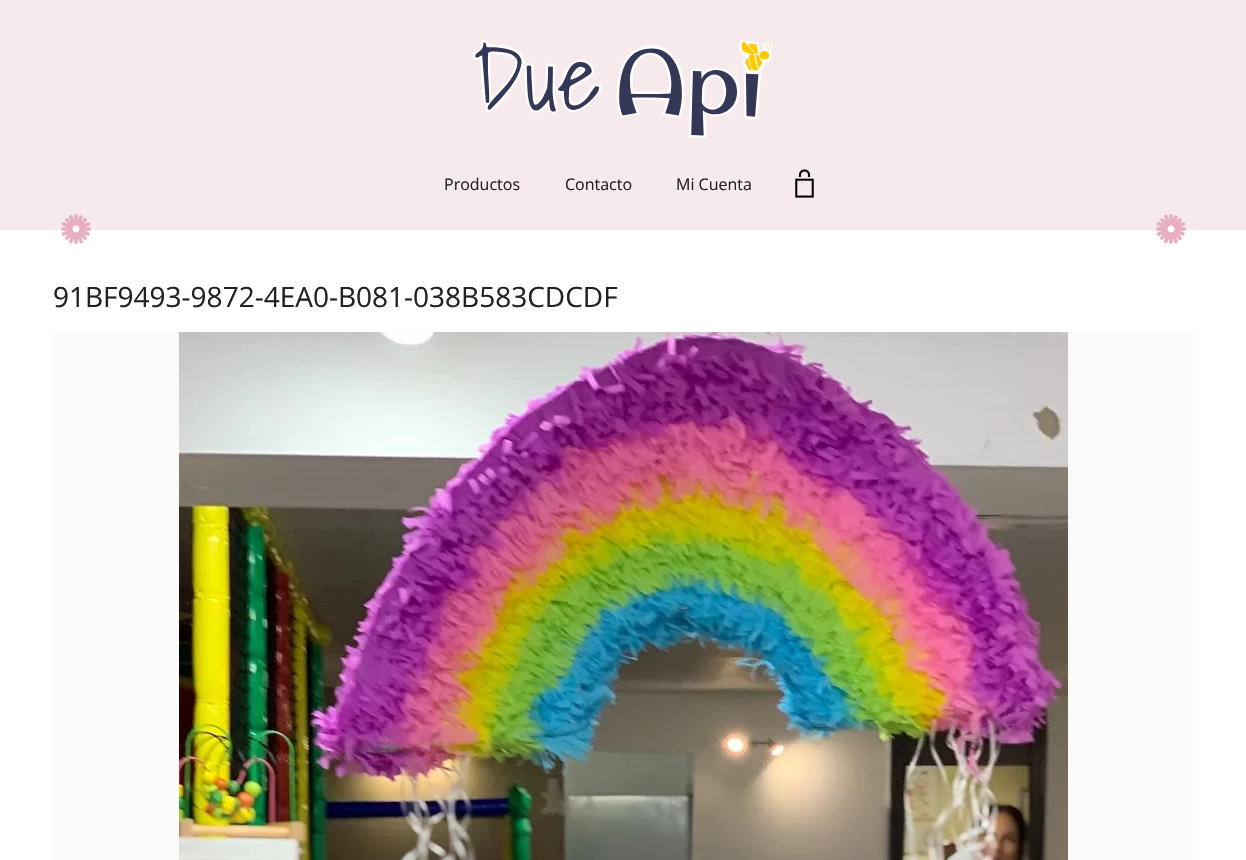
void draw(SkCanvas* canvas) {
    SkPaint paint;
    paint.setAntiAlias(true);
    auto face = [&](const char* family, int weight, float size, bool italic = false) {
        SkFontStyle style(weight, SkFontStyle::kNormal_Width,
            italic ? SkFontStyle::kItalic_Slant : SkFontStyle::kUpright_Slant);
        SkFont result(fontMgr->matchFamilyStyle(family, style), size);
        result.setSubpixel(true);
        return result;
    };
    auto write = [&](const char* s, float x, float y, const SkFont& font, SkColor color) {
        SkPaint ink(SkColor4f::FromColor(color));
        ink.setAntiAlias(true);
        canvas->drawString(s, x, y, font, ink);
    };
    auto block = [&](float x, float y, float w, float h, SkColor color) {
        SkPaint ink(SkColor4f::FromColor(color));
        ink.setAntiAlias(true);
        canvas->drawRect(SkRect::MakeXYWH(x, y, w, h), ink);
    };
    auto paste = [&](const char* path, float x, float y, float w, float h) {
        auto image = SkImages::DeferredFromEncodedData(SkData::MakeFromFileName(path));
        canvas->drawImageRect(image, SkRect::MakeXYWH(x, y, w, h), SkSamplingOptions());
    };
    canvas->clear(SK_ColorWHITE);
    block(0, 0, 1246, 230, SkColorSetRGB(247, 234, 237));
    paste("pic1.png", 473, 40, 300, 98);
    auto kFont1 = face("Open Sans", 400, 16);
    write("Productos", 444, 190, kFont1, SkColorSetRGB(34, 34, 34));
    write("Contacto", 565, 190, kFont1, SkColorSetRGB(34, 34, 34));
    write("Mi Cuenta", 676, 190, kFont1, SkColorSetRGB(34, 34, 34));
    paste("pic2.png", 795, 169, 19, 29);
    paste("pic3.png", 1156, 214, 30, 30);
    paste("pic3.png", 61, 214, 30, 30);
    auto kFont2 = face("Open Sans", 400, 28);
    write("91BF9493-9872-4EA0-B081-038B583CDCDF", 53, 307, kFont2, SkColorSetRGB(34, 34, 34));
    block(53, 332, 1140, 528, SkColorSetRGB(250, 250, 250));
    paste("pic4.png", 179, 332, 889, 528);
}
